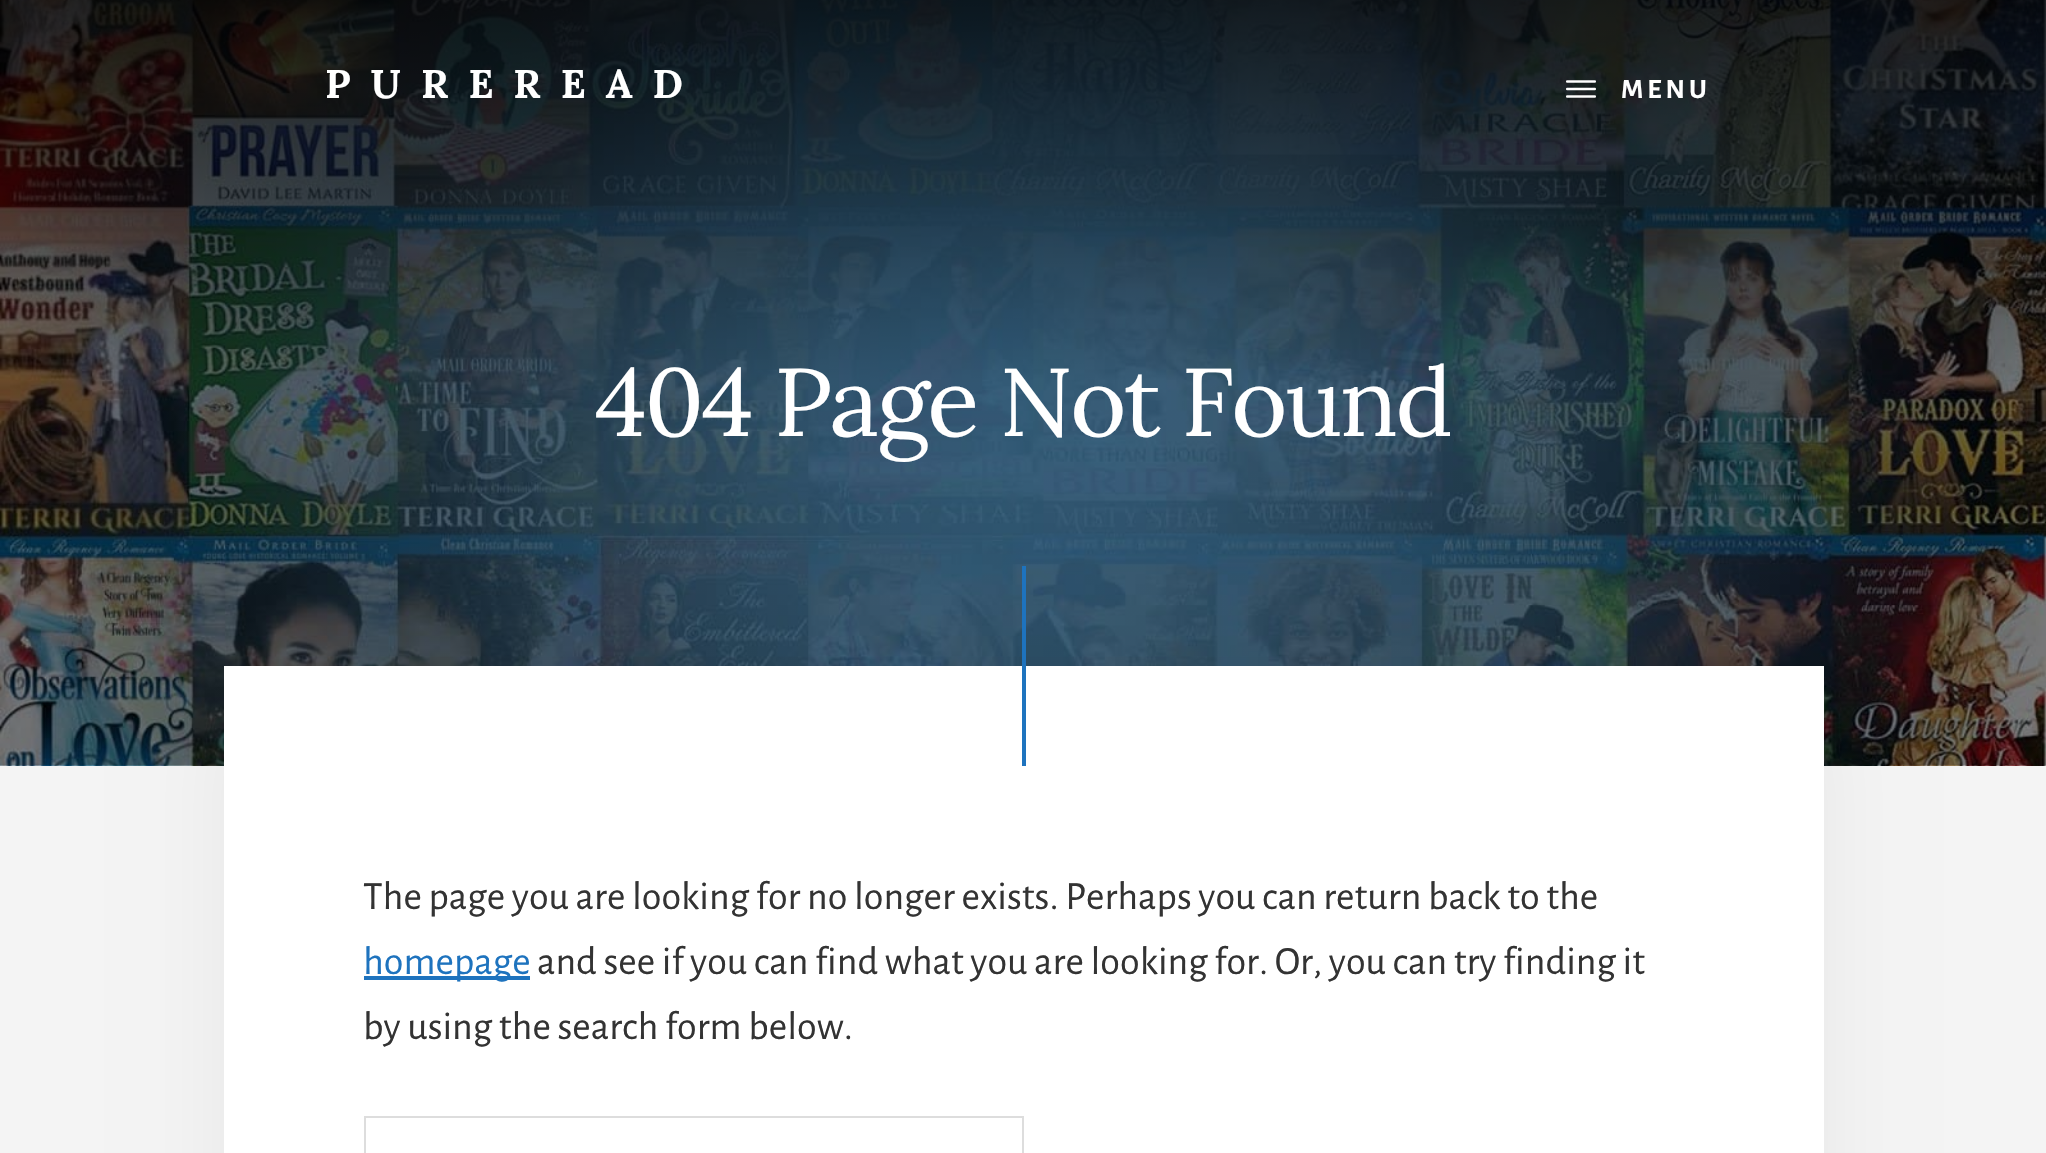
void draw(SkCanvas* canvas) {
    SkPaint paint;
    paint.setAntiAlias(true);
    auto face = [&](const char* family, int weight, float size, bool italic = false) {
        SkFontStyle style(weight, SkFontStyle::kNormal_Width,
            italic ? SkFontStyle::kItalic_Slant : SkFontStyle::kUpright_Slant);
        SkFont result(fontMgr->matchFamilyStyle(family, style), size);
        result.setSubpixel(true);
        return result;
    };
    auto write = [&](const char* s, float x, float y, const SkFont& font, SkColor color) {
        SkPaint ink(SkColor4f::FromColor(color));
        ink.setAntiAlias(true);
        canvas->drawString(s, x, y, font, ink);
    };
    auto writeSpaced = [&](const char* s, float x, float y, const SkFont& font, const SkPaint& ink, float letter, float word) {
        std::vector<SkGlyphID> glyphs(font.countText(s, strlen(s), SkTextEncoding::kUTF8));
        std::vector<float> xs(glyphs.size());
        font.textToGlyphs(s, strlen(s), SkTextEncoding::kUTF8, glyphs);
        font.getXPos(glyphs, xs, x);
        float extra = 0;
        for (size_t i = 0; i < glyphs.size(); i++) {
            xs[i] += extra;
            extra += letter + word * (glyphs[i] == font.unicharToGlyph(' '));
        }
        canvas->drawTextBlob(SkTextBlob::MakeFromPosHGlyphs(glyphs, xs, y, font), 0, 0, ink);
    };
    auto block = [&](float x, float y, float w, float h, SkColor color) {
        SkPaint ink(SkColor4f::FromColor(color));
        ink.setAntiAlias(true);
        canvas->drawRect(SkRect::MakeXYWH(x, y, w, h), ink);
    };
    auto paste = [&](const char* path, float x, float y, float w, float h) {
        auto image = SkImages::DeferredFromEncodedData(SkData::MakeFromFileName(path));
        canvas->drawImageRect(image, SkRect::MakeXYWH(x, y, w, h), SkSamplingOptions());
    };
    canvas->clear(SkColorSetRGB(244, 244, 244));
    paste("pic1.png", 0, 0, 2046, 766);
    auto kFont1 = face("Lora", 700, 40);
    paint.setColor(SK_ColorWHITE);
    writeSpaced("PUREREAD", 325, 98, kFont1, paint, 20, 0);
    paste("pic2.png", 1566, 80, 30, 18);
    auto kFont2 = face("Alegreya Sans", 700, 28);
    writeSpaced("MENU", 1621, 98, kFont2, paint, 4, 0);
    auto kFont3 = face("Lora", 400, 96);
    writeSpaced("404 Page Not Found", 595, 436, kFont3, paint, -2.5f, 0);
    paint.setColor(SkColorSetARGB(13, 0, 0, 0));
    paint.setMaskFilter(SkMaskFilter::MakeBlur(kNormal_SkBlurStyle, 40));
    canvas->drawRect(SkRect::MakeXYWH(224, 716, 1600, 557), paint);
    paint.setMaskFilter(nullptr);
    block(224, 666, 1600, 487, SK_ColorWHITE);
    block(1022, 566, 4, 200, SkColorSetRGB(30, 115, 190));
    auto kFont4 = face("Alegreya Sans", 400, 40);
    write("The page you are looking for no longer exists. Perhaps you can return back to the", 363, 909, kFont4, SkColorSetRGB(51, 51, 51));
    block(364, 976, 166, 4, SkColorSetRGB(30, 115, 190));
    write("homepage", 363, 974, kFont4, SkColorSetRGB(30, 115, 190));
    write("and see if you can find what you are looking for. Or, you can try finding it", 537, 974, kFont4, SkColorSetRGB(51, 51, 51));
    write("by using the search form below.", 363, 1039, kFont4, SkColorSetRGB(51, 51, 51));
    paint.setStyle(SkPaint::kStroke_Style);
    paint.setStrokeWidth(2);
    paint.setColor(SkColorSetRGB(221, 221, 221));
    canvas->drawRect(SkRect::MakeXYWH(365, 1117, 658, 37), paint);
}
